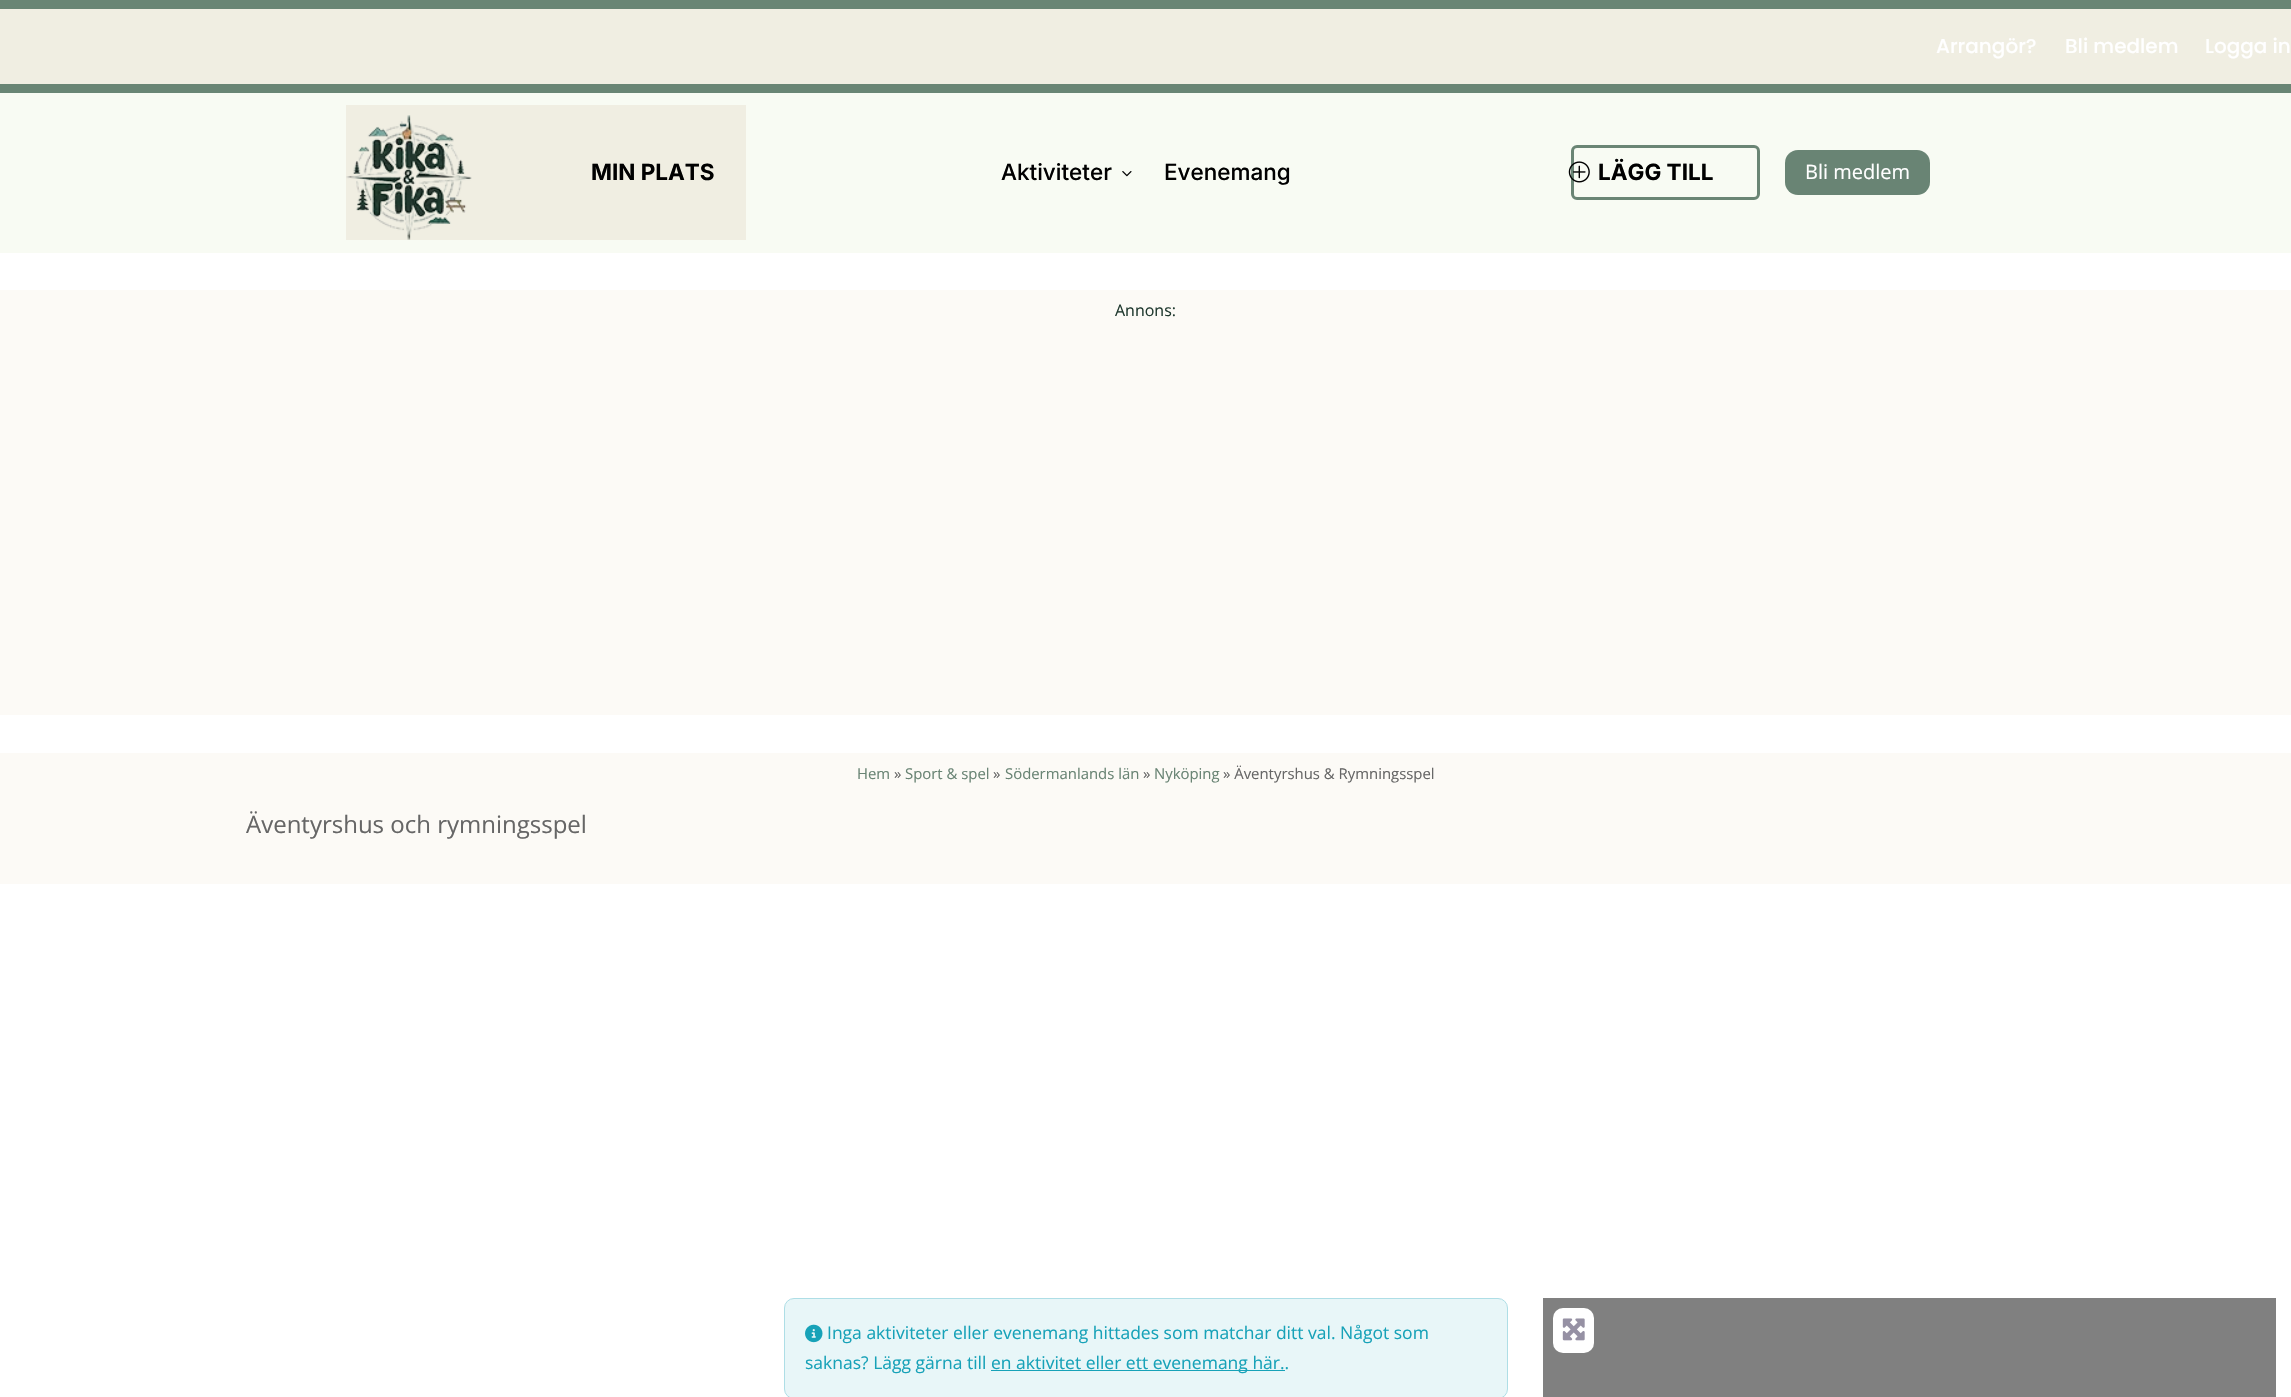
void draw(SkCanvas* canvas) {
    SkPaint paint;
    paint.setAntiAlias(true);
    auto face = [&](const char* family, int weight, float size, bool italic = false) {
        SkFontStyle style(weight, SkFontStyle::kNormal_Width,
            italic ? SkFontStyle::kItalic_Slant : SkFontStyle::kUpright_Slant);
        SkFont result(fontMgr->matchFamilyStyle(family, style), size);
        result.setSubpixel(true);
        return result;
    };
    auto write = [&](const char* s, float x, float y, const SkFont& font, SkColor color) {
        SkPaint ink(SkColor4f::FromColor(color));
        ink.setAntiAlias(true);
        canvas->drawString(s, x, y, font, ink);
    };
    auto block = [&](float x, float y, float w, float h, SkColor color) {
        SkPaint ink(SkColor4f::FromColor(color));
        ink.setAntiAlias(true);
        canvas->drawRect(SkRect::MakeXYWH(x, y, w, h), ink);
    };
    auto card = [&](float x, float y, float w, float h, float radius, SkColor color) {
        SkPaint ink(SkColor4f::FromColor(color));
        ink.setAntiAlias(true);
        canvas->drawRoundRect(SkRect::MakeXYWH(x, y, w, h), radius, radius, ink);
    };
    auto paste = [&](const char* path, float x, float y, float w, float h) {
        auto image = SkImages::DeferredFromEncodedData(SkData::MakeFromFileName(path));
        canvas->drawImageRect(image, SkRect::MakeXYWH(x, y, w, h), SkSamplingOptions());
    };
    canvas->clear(SK_ColorWHITE);
    block(0, 0, 2291, 93, SkColorSetRGB(105, 133, 116));
    block(0, 9, 2291, 75, SkColorSetRGB(240, 238, 226));
    auto kFont1 = face("Poppins", 500, 20);
    write("Arrangör?", 1936, 53, kFont1, SK_ColorWHITE);
    write("Bli medlem", 2065, 53, kFont1, SK_ColorWHITE);
    write("Logga in", 2205, 53, kFont1, SK_ColorWHITE);
    block(0, 93, 2291, 160, SkColorSetRGB(248, 251, 243));
    block(346, 105, 400, 135, SkColorSetRGB(240, 238, 226));
    paste("pic1.png", 346, 115, 126, 125);
    auto kFont2 = face("Inter", 700, 22.5f);
    write("MIN PLATS", 591, 180, kFont2, SK_ColorBLACK);
    auto kFont3 = face("Inter", 500, 22.5f);
    write("Aktiviteter", 1001, 180, kFont3, SK_ColorBLACK);
    paste("pic2.png", 1122, 171, 10, 6);
    write("Evenemang", 1164, 180, kFont3, SK_ColorBLACK);
    paint.setStyle(SkPaint::kStroke_Style);
    paint.setStrokeWidth(3);
    paint.setColor(SkColorSetRGB(106, 133, 116));
    canvas->drawRoundRect(SkRect::MakeXYWH(1572.5f, 146.5f, 186, 52), 4.5f, 4.5f, paint);
    paste("pic3.png", 1568, 161, 22, 22);
    write("LÄGG TILL", 1598, 180, kFont2, SK_ColorBLACK);
    card(1785, 150, 145, 45, 13, SkColorSetRGB(105, 132, 116));
    auto kFont4 = face("Open Sans", 400, 20);
    write("Bli medlem", 1805, 179, kFont4, SK_ColorWHITE);
    block(0, 290, 2291, 425, SkColorSetRGB(252, 250, 246));
    auto kFont5 = face("Open Sans", 400, 16);
    write("Annons:", 1115, 316, kFont5, SkColorSetRGB(33, 58, 48));
    block(0, 753, 2291, 131, SkColorSetRGB(252, 250, 246));
    auto kFont6 = face("Open Sans", 400, 14.9f);
    write("Hem", 857, 779, kFont6, SkColorSetRGB(105, 132, 116));
    write("»", 894, 779, kFont6, SkColorSetRGB(102, 102, 102));
    write("Sport & spel", 905, 779, kFont6, SkColorSetRGB(105, 132, 116));
    write("»", 993, 779, kFont6, SkColorSetRGB(102, 102, 102));
    write("Södermanlands län", 1005, 779, kFont6, SkColorSetRGB(105, 132, 116));
    write("»", 1143, 779, kFont6, SkColorSetRGB(102, 102, 102));
    write("Nyköping", 1154, 779, kFont6, SkColorSetRGB(105, 132, 116));
    write("» Äventyrshus & Rymningsspel", 1223, 779, kFont6, SkColorSetRGB(102, 102, 102));
    auto kFont7 = face("Open Sans", 400, 24);
    write("Äventyrshus och rymningsspel", 246, 833, kFont7, SkColorSetRGB(102, 102, 102));
    paint.setStyle(SkPaint::kFill_Style);
    paint.setColor(SkColorSetRGB(232, 246, 248));
    canvas->drawRoundRect(SkRect::MakeXYWH(784.5f, 1298.5f, 723, 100), 9.5f, 9.5f, paint);
    paint.setStyle(SkPaint::kStroke_Style);
    paint.setStrokeWidth(1);
    paint.setColor(SkColorSetRGB(174, 222, 230));
    canvas->drawRoundRect(SkRect::MakeXYWH(784.5f, 1298.5f, 723, 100), 9.5f, 9.5f, paint);
    paste("pic4.png", 805, 1324, 18, 19);
    auto kFont8 = face("Open Sans", 400, 17.5f);
    write("Inga aktiviteter eller evenemang hittades som matchar ditt val. Något som", 827, 1339, kFont8, SkColorSetRGB(23, 162, 184));
    write("saknas? Lägg gärna till", 805, 1369, kFont8, SkColorSetRGB(23, 162, 184));
    block(991, 1370, 294, 1, SkColorSetRGB(23, 162, 184));
    write("en aktivitet eller ett evenemang här..", 991, 1369, kFont8, SkColorSetRGB(23, 162, 184));
    block(1543, 1298, 733, 99, SkColorSetRGB(128, 128, 128));
    card(1553, 1308, 41, 45, 10, SK_ColorWHITE);
    paste("pic5.png", 1562, 1318, 23, 23);
}
